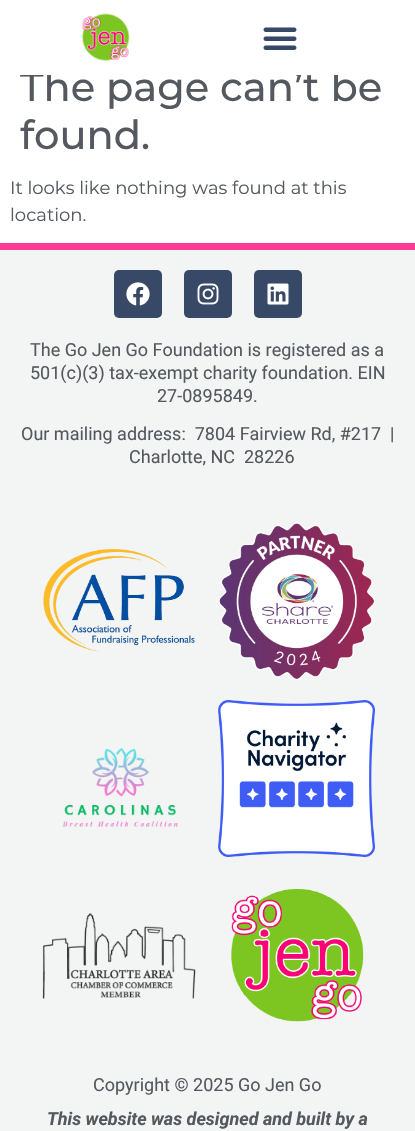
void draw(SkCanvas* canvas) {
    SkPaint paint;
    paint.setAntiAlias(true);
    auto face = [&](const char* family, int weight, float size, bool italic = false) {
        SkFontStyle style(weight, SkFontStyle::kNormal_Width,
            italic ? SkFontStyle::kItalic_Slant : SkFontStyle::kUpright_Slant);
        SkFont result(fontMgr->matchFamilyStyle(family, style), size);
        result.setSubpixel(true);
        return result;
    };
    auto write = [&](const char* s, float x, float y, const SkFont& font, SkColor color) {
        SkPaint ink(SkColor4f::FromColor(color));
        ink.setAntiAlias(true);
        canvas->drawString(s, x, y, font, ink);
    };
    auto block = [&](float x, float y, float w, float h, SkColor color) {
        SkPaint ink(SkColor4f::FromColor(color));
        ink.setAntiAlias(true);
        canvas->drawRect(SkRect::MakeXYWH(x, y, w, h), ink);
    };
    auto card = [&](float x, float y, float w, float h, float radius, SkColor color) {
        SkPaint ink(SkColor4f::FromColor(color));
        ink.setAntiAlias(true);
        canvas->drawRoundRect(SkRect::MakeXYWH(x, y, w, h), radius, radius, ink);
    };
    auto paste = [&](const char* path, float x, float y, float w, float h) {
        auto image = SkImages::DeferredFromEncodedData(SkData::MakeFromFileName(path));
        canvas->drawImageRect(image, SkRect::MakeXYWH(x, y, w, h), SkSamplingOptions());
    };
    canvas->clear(SK_ColorWHITE);
    auto kFont1 = face("Montserrat", 500, 40);
    write("The page can’t be", 20, 101, kFont1, SkColorSetRGB(84, 89, 95));
    block(20, 71, 318, 4, SK_ColorWHITE);
    paste("pic1.png", 82, 13, 48, 48);
    paste("pic2.png", 263, 27, 34, 23);
    write("found.", 20, 149, kFont1, SkColorSetRGB(84, 89, 95));
    auto kFont2 = face("Montserrat", 400, 18);
    write("It looks like nothing was found at this", 10, 194, kFont2, SkColorSetRGB(84, 89, 95));
    write("location.", 10, 221, kFont2, SkColorSetRGB(84, 89, 95));
    block(0, 250, 415, 881, SkColorSetRGB(243, 244, 244));
    block(0, 243, 415, 7, SkColorSetRGB(250, 59, 147));
    card(114, 270, 48, 48, 5, SkColorSetRGB(56, 73, 103));
    paste("pic3.png", 126, 282, 24, 24);
    card(184, 270, 48, 48, 5, SkColorSetRGB(56, 73, 103));
    paste("pic4.png", 197, 283, 22, 22);
    card(254, 270, 48, 48, 5, SkColorSetRGB(56, 73, 103));
    paste("pic5.png", 267, 283, 22, 22);
    auto kFont3 = face("Roboto", 400, 18);
    write("The Go Jen Go Foundation is registered as a", 30, 356, kFont3, SkColorSetRGB(84, 89, 95));
    write("501(c)(3) tax-exempt charity foundation. EIN", 30, 379, kFont3, SkColorSetRGB(84, 89, 95));
    write("27-0895849.", 157, 402, kFont3, SkColorSetRGB(84, 89, 95));
    write("Our mailing address:  7804 Fairview Rd, #217  |", 21, 440, kFont3, SkColorSetRGB(84, 89, 95));
    write("Charlotte, NC  28226", 129, 463, kFont3, SkColorSetRGB(84, 89, 95));
    paste("pic6.png", 43, 549, 152, 103);
    paste("pic7.png", 218, 522, 157, 158);
    paste("pic8.png", 62, 748, 116, 79);
    paste("pic9.png", 218, 700, 157, 157);
    paste("pic10.png", 42, 913, 154, 86);
    paste("pic11.png", 231, 889, 133, 133);
    write("Copyright © 2025 Go Jen Go", 93, 1091, kFont3, SkColorSetRGB(84, 89, 95));
    auto kFont4 = face("Roboto", 700, 18, true);
    write("This website was designed and built by a", 47, 1125, kFont4, SkColorSetRGB(84, 89, 95));
}
